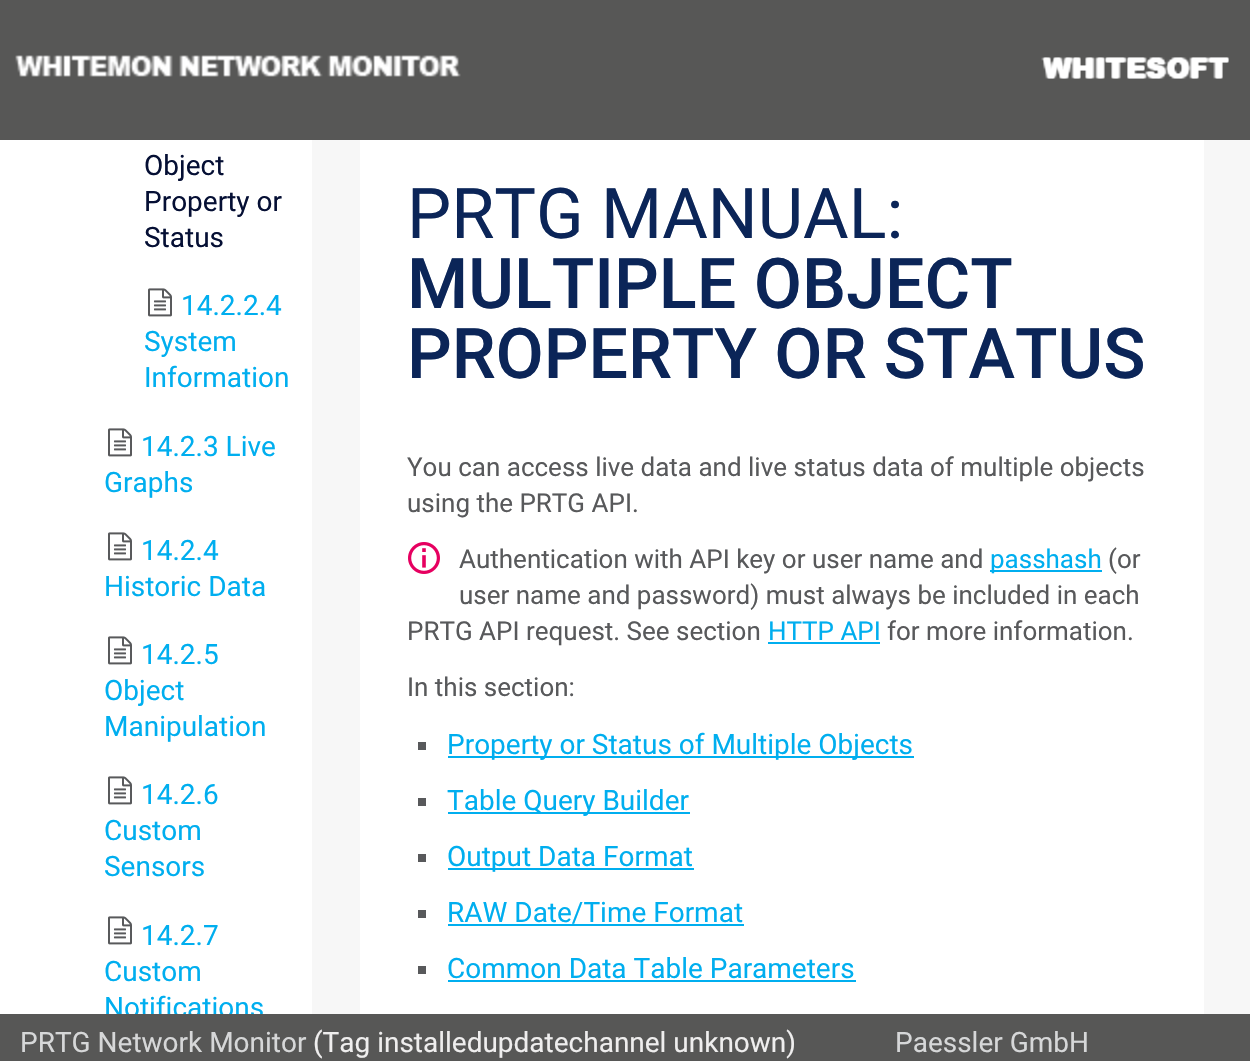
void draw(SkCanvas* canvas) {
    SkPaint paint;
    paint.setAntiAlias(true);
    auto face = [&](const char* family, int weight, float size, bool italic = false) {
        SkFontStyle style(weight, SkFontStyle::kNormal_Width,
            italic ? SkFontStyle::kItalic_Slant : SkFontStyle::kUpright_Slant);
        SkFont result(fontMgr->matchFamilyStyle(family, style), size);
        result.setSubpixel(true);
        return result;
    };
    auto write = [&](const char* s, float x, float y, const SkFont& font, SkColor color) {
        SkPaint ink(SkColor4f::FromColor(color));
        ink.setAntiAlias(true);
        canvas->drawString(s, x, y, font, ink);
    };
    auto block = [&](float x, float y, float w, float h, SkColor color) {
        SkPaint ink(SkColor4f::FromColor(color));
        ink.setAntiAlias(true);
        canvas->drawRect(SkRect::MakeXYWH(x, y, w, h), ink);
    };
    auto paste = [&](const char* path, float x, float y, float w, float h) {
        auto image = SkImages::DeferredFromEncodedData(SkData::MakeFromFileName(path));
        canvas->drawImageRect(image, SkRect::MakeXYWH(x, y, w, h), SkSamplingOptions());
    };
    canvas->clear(SkColorSetRGB(247, 247, 247));
    block(0, 0, 1250, 140, SkColorSetRGB(87, 87, 86));
    paste("pic1.png", 15, 55, 446, 22);
    paste("pic2.png", 1041, 57, 188, 22);
    paste("pic3.png", 1041, 57, 188, 22);
    block(0, 140, 312, 874, SK_ColorWHITE);
    auto kFont1 = face("Roboto", 400, 28);
    write("Object", 144, 175, kFont1, SkColorSetRGB(5, 15, 52));
    write("Property or", 144, 211, kFont1, SkColorSetRGB(5, 15, 52));
    write("Status", 144, 247, kFont1, SkColorSetRGB(5, 15, 52));
    paste("pic4.png", 148, 288, 24, 29);
    write("14.2.2.4", 181, 315, kFont1, SkColorSetRGB(0, 174, 239));
    write("System", 144, 351, kFont1, SkColorSetRGB(0, 174, 239));
    write("Information", 144, 387, kFont1, SkColorSetRGB(0, 174, 239));
    paste("pic4.png", 108, 428, 24, 29);
    write("14.2.3 Live", 141, 456, kFont1, SkColorSetRGB(0, 174, 239));
    write("Graphs", 104, 492, kFont1, SkColorSetRGB(0, 174, 239));
    paste("pic4.png", 108, 532, 24, 29);
    write("14.2.4", 141, 560, kFont1, SkColorSetRGB(0, 174, 239));
    write("Historic Data", 104, 596, kFont1, SkColorSetRGB(0, 174, 239));
    paste("pic4.png", 108, 636, 24, 29);
    write("14.2.5", 141, 664, kFont1, SkColorSetRGB(0, 174, 239));
    write("Object", 104, 700, kFont1, SkColorSetRGB(0, 174, 239));
    write("Manipulation", 104, 736, kFont1, SkColorSetRGB(0, 174, 239));
    paste("pic4.png", 108, 776, 24, 29);
    write("14.2.6", 141, 804, kFont1, SkColorSetRGB(0, 174, 239));
    write("Custom", 104, 840, kFont1, SkColorSetRGB(0, 174, 239));
    write("Sensors", 104, 876, kFont1, SkColorSetRGB(0, 174, 239));
    paste("pic4.png", 108, 916, 24, 29);
    write("14.2.7", 141, 945, kFont1, SkColorSetRGB(0, 174, 239));
    write("Custom", 104, 981, kFont1, SkColorSetRGB(0, 174, 239));
    write("Notifications", 104, 1017, kFont1, SkColorSetRGB(0, 174, 239));
    block(360, 140, 844, 874, SK_ColorWHITE);
    auto kFont2 = face("Roboto", 400, 70);
    write("PRTG MANUAL:", 407, 238, kFont2, SkColorSetRGB(11, 37, 88));
    auto kFont3 = face("Roboto", 500, 70);
    write("MULTIPLE OBJECT", 407, 308, kFont3, SkColorSetRGB(11, 37, 88));
    write("PROPERTY OR STATUS", 407, 378, kFont3, SkColorSetRGB(11, 37, 88));
    auto kFont4 = face("Roboto", 400, 26);
    write("You can access live data and live status data of multiple objects", 407, 476, kFont4, SkColorSetRGB(88, 89, 91));
    write("using the PRTG API.", 407, 512, kFont4, SkColorSetRGB(88, 89, 91));
    paste("pic5.png", 408, 542, 32, 32);
    write("Authentication with API key or user name and", 459, 568, kFont4, SkColorSetRGB(88, 89, 91));
    block(990, 570, 112, 2, SkColorSetRGB(0, 174, 239));
    write("passhash", 990, 568, kFont4, SkColorSetRGB(0, 174, 239));
    write("(or", 1108, 568, kFont4, SkColorSetRGB(88, 89, 91));
    write("user name and password) must always be included in each", 459, 604, kFont4, SkColorSetRGB(88, 89, 91));
    write("PRTG API request. See section", 407, 640, kFont4, SkColorSetRGB(88, 89, 91));
    write("HTTP API", 768, 640, kFont4, SkColorSetRGB(0, 174, 239));
    block(768, 642, 112, 2, SkColorSetRGB(0, 174, 239));
    write("for more information.", 887, 640, kFont4, SkColorSetRGB(88, 89, 91));
    write("In this section:", 407, 696, kFont4, SkColorSetRGB(88, 89, 91));
    block(418, 742, 8, 8, SkColorSetRGB(88, 89, 91));
    block(448, 756, 466, 2, SkColorSetRGB(0, 174, 239));
    write("Property or Status of Multiple Objects", 447, 754, kFont1, SkColorSetRGB(0, 174, 239));
    block(418, 798, 8, 8, SkColorSetRGB(88, 89, 91));
    block(448, 812, 242, 2, SkColorSetRGB(0, 174, 239));
    write("Table Query Builder", 447, 810, kFont1, SkColorSetRGB(0, 174, 239));
    block(418, 854, 8, 8, SkColorSetRGB(88, 89, 91));
    block(448, 868, 246, 2, SkColorSetRGB(0, 174, 239));
    write("Output Data Format", 447, 866, kFont1, SkColorSetRGB(0, 174, 239));
    block(418, 910, 8, 8, SkColorSetRGB(88, 89, 91));
    write("RAW Date/Time Format", 447, 922, kFont1, SkColorSetRGB(0, 174, 239));
    block(448, 924, 296, 2, SkColorSetRGB(0, 174, 239));
    block(418, 966, 8, 8, SkColorSetRGB(88, 89, 91));
    write("Common Data Table Parameters", 447, 978, kFont1, SkColorSetRGB(0, 174, 239));
    block(448, 980, 408, 2, SkColorSetRGB(0, 174, 239));
    block(0, 1014, 1250, 47, SkColorSetRGB(87, 87, 86));
    write("PRTG Network Monitor", 20, 1052, kFont1, SkColorSetRGB(214, 215, 216));
    write("(Tag installedupdatechannel unknown)", 313, 1052, kFont1, SkColorSetRGB(239, 238, 238));
    write("Paessler GmbH", 895, 1052, kFont1, SkColorSetRGB(214, 215, 216));
}
